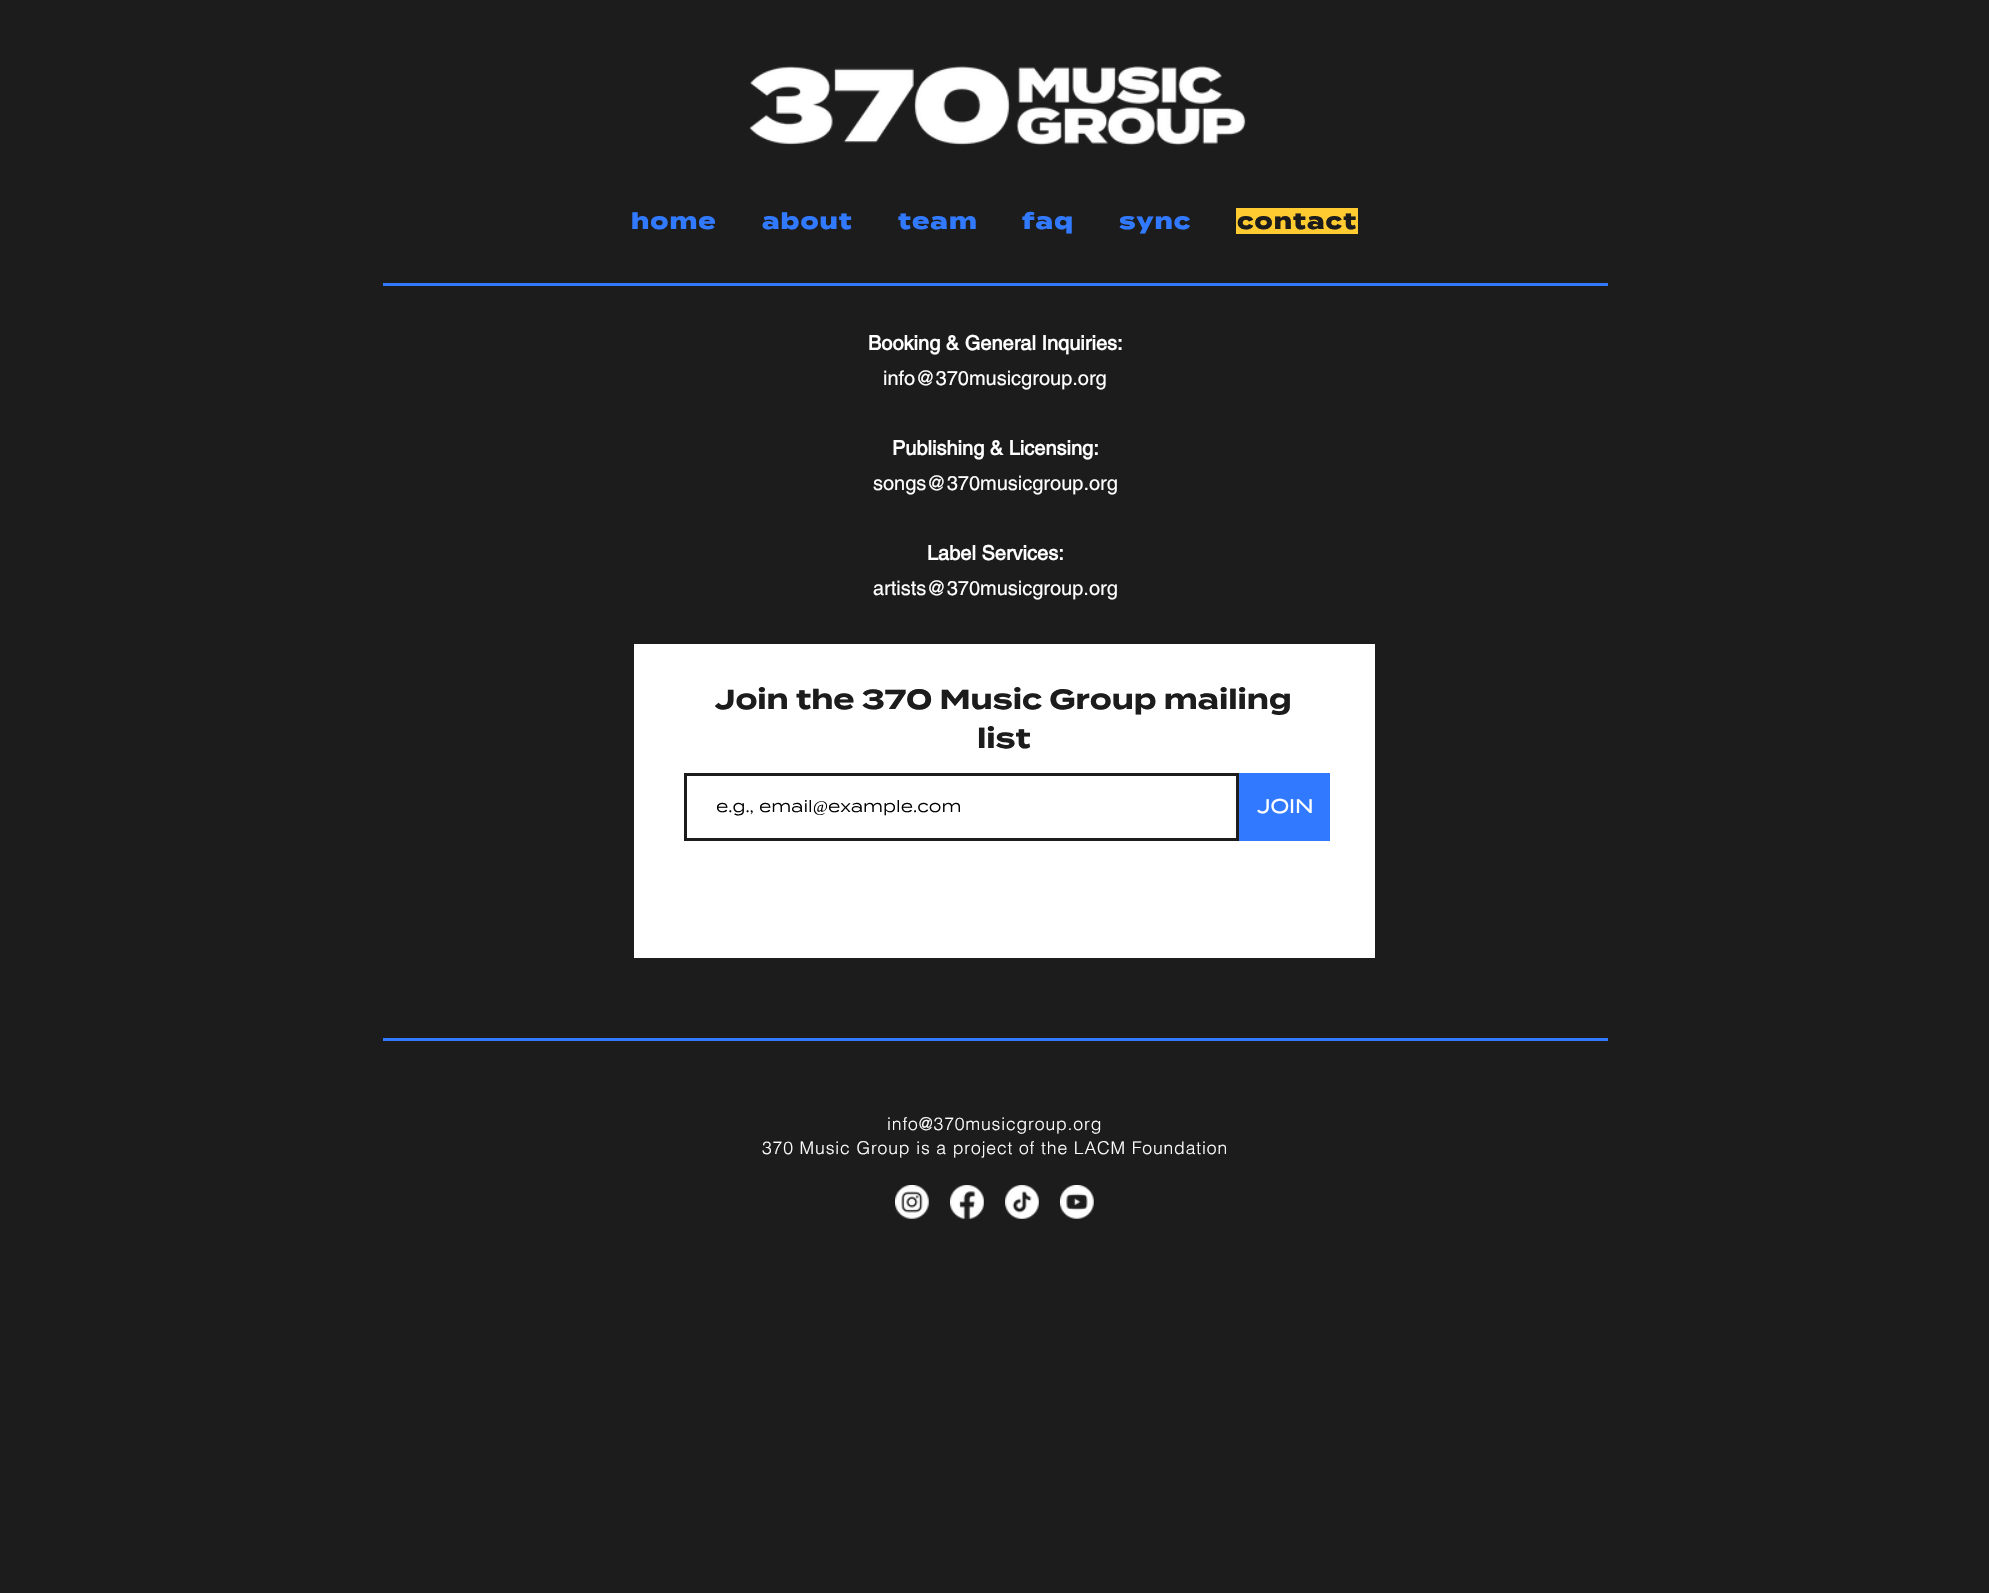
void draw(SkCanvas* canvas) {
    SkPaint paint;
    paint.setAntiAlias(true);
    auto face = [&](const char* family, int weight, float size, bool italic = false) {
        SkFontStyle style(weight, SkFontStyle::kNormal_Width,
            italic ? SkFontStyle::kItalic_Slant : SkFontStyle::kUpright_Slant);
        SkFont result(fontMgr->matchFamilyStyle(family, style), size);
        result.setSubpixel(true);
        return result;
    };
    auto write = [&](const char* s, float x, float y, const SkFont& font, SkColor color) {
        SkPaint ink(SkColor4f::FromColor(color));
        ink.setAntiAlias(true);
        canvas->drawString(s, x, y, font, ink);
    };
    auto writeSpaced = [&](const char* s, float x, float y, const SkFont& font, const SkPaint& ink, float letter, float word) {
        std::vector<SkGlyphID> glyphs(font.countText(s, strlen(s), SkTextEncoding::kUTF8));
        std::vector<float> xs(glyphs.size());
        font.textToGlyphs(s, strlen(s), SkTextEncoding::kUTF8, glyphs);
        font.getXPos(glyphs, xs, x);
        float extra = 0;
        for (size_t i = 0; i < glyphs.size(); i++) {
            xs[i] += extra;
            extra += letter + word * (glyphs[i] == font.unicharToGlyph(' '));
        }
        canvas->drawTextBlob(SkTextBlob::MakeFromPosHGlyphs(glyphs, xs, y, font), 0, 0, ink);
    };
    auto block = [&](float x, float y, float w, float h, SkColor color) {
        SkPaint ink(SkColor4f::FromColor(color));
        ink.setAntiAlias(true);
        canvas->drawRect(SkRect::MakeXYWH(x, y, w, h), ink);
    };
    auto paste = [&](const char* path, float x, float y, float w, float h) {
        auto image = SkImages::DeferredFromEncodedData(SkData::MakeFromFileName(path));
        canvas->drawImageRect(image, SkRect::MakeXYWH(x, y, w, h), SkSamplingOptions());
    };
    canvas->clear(SkColorSetRGB(28, 28, 28));
    paste("pic1.png", 749, 66, 497, 80);
    auto kFont1 = face("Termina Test", 900, 22.5f);
    paint.setColor(SkColorSetRGB(49, 122, 255));
    writeSpaced("home", 631, 229, kFont1, paint, 1, 0);
    writeSpaced("about", 762, 229, kFont1, paint, 1, 0);
    writeSpaced("team", 898, 229, kFont1, paint, 1, 0);
    writeSpaced("faq", 1022, 229, kFont1, paint, 1, 0);
    writeSpaced("sync", 1119, 229, kFont1, paint, 1, 0);
    block(1236, 208, 122, 26, SkColorSetRGB(255, 203, 49));
    paint.setColor(SkColorSetRGB(28, 28, 28));
    writeSpaced("contact", 1237, 229, kFont1, paint, 1, 0);
    block(383, 283, 1225, 3, SkColorSetRGB(49, 122, 255));
    auto kFont2 = face("helvetica", 700, 20);
    write("Booking & General Inquiries:", 868, 350, kFont2, SK_ColorWHITE);
    auto kFont3 = face("helvetica", 400, 20);
    write("info@370musicgroup.org", 883, 385, kFont3, SK_ColorWHITE);
    write("Publishing & Licensing:", 892, 455, kFont2, SK_ColorWHITE);
    write("songs@370musicgroup.org", 873, 490, kFont3, SK_ColorWHITE);
    write("Label Services:", 927, 560, kFont2, SK_ColorWHITE);
    write("artists@370musicgroup.org", 873, 595, kFont3, SK_ColorWHITE);
    block(634, 644, 741, 314, SK_ColorWHITE);
    auto kFont4 = face("Termina Test", 700, 27.5f);
    write("Join the 370 Music Group mailing", 715, 709, kFont4, SkColorSetRGB(28, 28, 28));
    write("list", 977, 748, kFont4, SkColorSetRGB(28, 28, 28));
    paint.setStyle(SkPaint::kStroke_Style);
    paint.setStrokeWidth(3);
    canvas->drawRect(SkRect::MakeXYWH(685.5f, 774.5f, 552, 65), paint);
    auto kFont5 = face("Termina Test", 400, 16.25f);
    write("e.g., email", 716, 812, kFont5, SK_ColorBLACK);
    auto kFont6 = face("Liberation Serif", 400, 16.25f);
    write("@", 813, 812, kFont6, SK_ColorBLACK);
    write("example.com", 828, 812, kFont5, SK_ColorBLACK);
    block(1239, 773, 91, 68, SkColorSetRGB(49, 122, 255));
    auto kFont7 = face("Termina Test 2", 700, 19);
    write("JOIN", 1257, 813, kFont7, SK_ColorWHITE);
    block(383, 1038, 1225, 3, SkColorSetRGB(49, 122, 255));
    auto kFont8 = face("helvetica", 300, 17.5f);
    paint.setStyle(SkPaint::kFill_Style);
    paint.setColor(SK_ColorWHITE);
    writeSpaced("info@370musicgroup.org", 887, 1130, kFont8, paint, 0.88f, 0);
    writeSpaced("370 Music Group is a project of the LACM Foundation", 762, 1154, kFont8, paint, 0.88f, 0);
    paste("pic2.png", 895, 1185, 34, 34);
    paste("pic3.png", 950, 1185, 34, 34);
    paste("pic4.png", 1005, 1185, 34, 34);
    paste("pic5.png", 1060, 1185, 34, 34);
}
